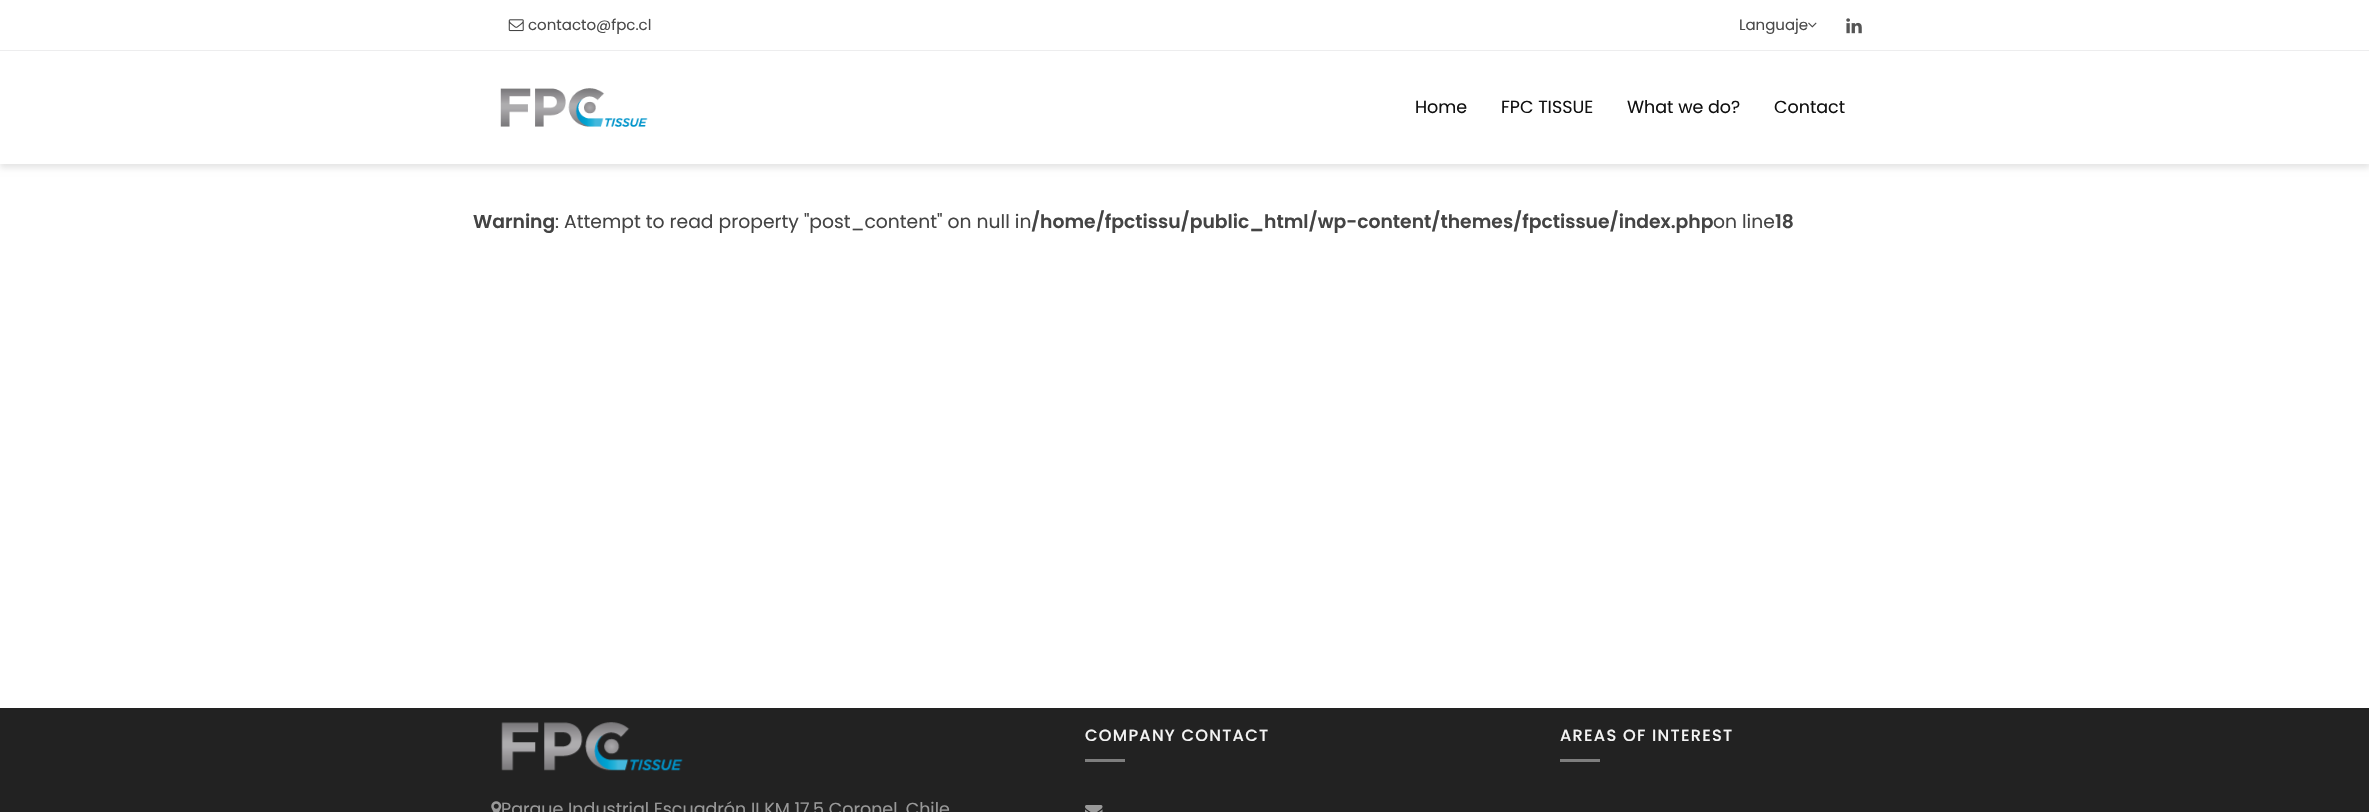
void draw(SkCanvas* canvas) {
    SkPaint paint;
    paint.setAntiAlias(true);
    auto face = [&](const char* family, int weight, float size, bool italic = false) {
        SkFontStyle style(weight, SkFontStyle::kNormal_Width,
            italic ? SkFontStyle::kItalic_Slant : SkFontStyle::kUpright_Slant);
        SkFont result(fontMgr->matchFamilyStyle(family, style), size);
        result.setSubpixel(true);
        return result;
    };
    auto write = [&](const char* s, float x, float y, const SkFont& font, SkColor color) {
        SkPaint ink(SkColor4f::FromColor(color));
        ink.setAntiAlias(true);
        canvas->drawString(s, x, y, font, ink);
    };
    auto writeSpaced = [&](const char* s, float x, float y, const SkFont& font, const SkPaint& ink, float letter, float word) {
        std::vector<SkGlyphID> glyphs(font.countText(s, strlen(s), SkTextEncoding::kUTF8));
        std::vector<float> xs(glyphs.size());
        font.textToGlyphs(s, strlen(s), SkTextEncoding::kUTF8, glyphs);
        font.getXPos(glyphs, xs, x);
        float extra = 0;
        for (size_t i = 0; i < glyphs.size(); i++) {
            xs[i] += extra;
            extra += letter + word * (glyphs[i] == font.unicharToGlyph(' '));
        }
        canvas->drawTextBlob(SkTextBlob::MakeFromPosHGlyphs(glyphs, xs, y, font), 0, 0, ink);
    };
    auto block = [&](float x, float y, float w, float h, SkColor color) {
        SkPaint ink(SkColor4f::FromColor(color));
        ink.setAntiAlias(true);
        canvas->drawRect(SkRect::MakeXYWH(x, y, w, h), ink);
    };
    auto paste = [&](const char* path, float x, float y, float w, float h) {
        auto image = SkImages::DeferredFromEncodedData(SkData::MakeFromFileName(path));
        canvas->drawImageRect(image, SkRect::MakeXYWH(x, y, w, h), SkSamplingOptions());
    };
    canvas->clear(SK_ColorWHITE);
    paint.setColor(SkColorSetARGB(26, 0, 0, 0));
    paint.setMaskFilter(SkMaskFilter::MakeBlur(kNormal_SkBlurStyle, 3));
    canvas->drawRect(SkRect::MakeXYWH(0, 4, 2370, 164), paint);
    paint.setMaskFilter(nullptr);
    block(0, 0, 2369, 164, SK_ColorWHITE);
    block(0, 50, 2369, 1, SkColorSetRGB(237, 237, 238));
    paste("pic1.png", 508, 19, 16, 13);
    auto kFont1 = face("Poppins", 400, 15);
    write("contacto@fpc.cl", 528, 30, kFont1, SkColorSetRGB(74, 74, 74));
    write("Languaje", 1739, 30, kFont1, SkColorSetRGB(74, 74, 74));
    paste("pic2.png", 1808, 22, 9, 6);
    paste("pic3.png", 1846, 18, 16, 16);
    paste("pic4.png", 500, 88, 148, 39);
    auto kFont2 = face("Poppins", 400, 17.5f);
    write("Home", 1415, 113, kFont2, SkColorSetRGB(17, 17, 17));
    write("FPC TISSUE", 1501, 113, kFont2, SkColorSetRGB(17, 17, 17));
    write("What we do?", 1627, 113, kFont2, SkColorSetRGB(17, 17, 17));
    write("Contact", 1774, 113, kFont2, SkColorSetRGB(17, 17, 17));
    auto kFont3 = face("Poppins", 600, 18.75f);
    write("Warning", 473, 228, kFont3, SkColorSetRGB(68, 68, 68));
    auto kFont4 = face("Poppins", 400, 18.75f);
    write(": Attempt to read property \"post_content\" on null in", 555, 228, kFont4, SkColorSetRGB(68, 68, 68));
    write("/home/fpctissu/public_html/wp-content/themes/fpctissue/index.php", 1031, 228, kFont3, SkColorSetRGB(68, 68, 68));
    write("on line", 1713, 228, kFont4, SkColorSetRGB(68, 68, 68));
    write("18", 1775, 228, kFont3, SkColorSetRGB(68, 68, 68));
    block(0, 708, 2369, 104, SkColorSetRGB(34, 34, 34));
    auto kFont5 = face("Poppins", 500, 16.25f);
    paint.setColor(SkColorSetRGB(244, 244, 244));
    writeSpaced("COMPANY CONTACT", 1085, 741, kFont5, paint, 1.25f, 0);
    block(1085, 759, 40, 3, SkColorSetRGB(126, 126, 126));
    paste("pic5.png", 1085, 805, 18, 7);
    writeSpaced("AREAS OF INTEREST", 1560, 741, kFont5, paint, 1.25f, 0);
    block(1560, 759, 40, 3, SkColorSetRGB(126, 126, 126));
    paste("pic6.png", 501, 722, 182, 49);
    paste("pic7.png", 491, 801, 11, 11);
    write("Parque Industrial Escuadrón II KM 17,5 Coronel, Chile", 501, 815, kFont2, SkColorSetRGB(153, 153, 153));
}
